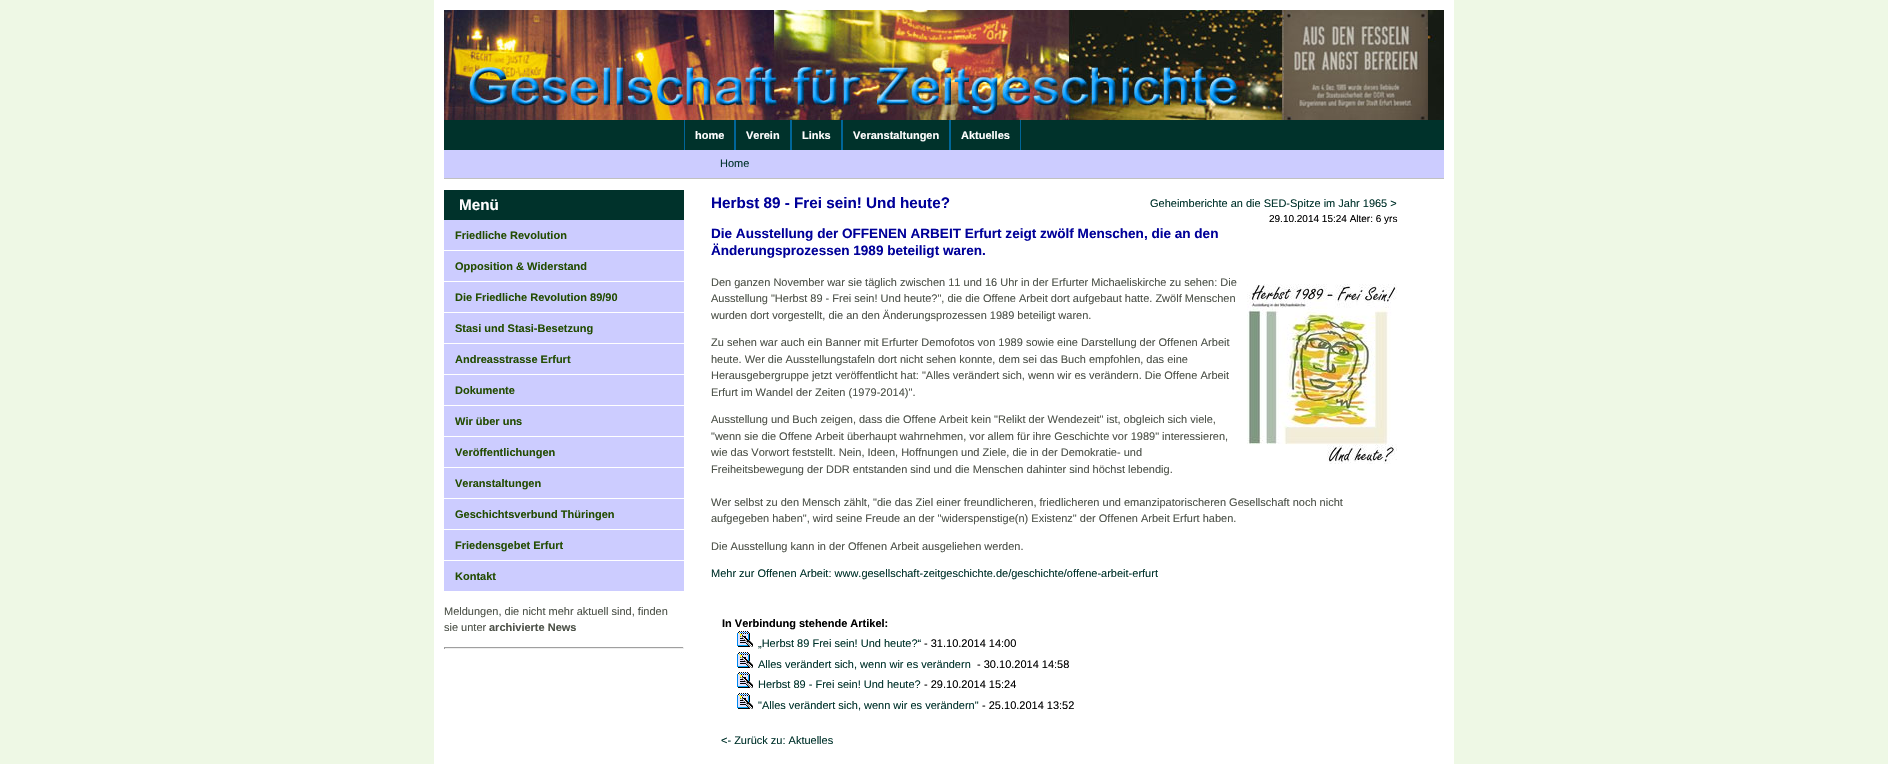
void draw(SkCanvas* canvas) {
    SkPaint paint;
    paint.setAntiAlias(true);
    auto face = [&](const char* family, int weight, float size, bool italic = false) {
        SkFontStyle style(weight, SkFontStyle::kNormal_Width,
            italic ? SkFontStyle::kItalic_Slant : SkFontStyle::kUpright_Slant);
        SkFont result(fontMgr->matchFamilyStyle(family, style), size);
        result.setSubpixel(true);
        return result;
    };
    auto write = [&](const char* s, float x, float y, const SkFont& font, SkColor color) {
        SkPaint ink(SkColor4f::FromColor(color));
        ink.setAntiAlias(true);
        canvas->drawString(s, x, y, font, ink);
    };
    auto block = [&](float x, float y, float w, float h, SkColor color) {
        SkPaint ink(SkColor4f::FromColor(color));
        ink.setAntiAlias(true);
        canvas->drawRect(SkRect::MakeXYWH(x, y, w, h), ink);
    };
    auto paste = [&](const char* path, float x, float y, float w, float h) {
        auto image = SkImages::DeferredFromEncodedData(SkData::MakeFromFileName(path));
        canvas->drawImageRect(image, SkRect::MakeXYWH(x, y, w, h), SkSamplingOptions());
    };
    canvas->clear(SkColorSetRGB(238, 248, 229));
    block(434, 0, 1020, 764, SK_ColorWHITE);
    paste("pic1.png", 444, 10, 1000, 110);
    block(444, 120, 1000, 30, SkColorSetRGB(0, 50, 43));
    block(734, 120, 2, 30, SkColorSetRGB(0, 102, 153));
    block(684, 120, 1, 30, SkColorSetRGB(0, 102, 153));
    auto kFont1 = face("Liberation Sans", 700, 11);
    write("home", 695, 139, kFont1, SK_ColorWHITE);
    block(790, 120, 2, 30, SkColorSetRGB(0, 102, 153));
    write("Verein", 746, 139, kFont1, SK_ColorWHITE);
    block(841, 120, 2, 30, SkColorSetRGB(0, 102, 153));
    write("Links", 802, 139, kFont1, SK_ColorWHITE);
    block(949, 120, 2, 30, SkColorSetRGB(0, 102, 153));
    write("Veranstaltungen", 853, 139, kFont1, SK_ColorWHITE);
    block(1020, 120, 1, 30, SkColorSetRGB(0, 102, 153));
    write("Aktuelles", 961, 139, kFont1, SK_ColorWHITE);
    block(444, 150, 1000, 28, SkColorSetRGB(204, 204, 255));
    block(444, 178, 1000, 1, SkColorSetRGB(192, 192, 192));
    auto kFont2 = face("Liberation Sans", 400, 11);
    write("Home", 720, 167, kFont2, SkColorSetRGB(0, 50, 43));
    block(444, 190, 240, 30, SkColorSetRGB(0, 50, 43));
    auto kFont3 = face("Liberation Sans", 700, 15.25f);
    write("Menü", 459, 210, kFont3, SK_ColorWHITE);
    block(444, 220, 240, 371, SkColorSetRGB(204, 204, 255));
    block(444, 250, 240, 1, SK_ColorWHITE);
    write("Friedliche Revolution", 455, 239, kFont1, SkColorSetRGB(36, 77, 3));
    block(444, 281, 240, 1, SK_ColorWHITE);
    write("Opposition & Widerstand", 455, 270, kFont1, SkColorSetRGB(36, 77, 3));
    block(444, 312, 240, 1, SK_ColorWHITE);
    write("Die Friedliche Revolution 89/90", 455, 301, kFont1, SkColorSetRGB(36, 77, 3));
    block(444, 343, 240, 1, SK_ColorWHITE);
    write("Stasi und Stasi-Besetzung", 455, 332, kFont1, SkColorSetRGB(36, 77, 3));
    block(444, 374, 240, 1, SK_ColorWHITE);
    write("Andreasstrasse Erfurt", 455, 363, kFont1, SkColorSetRGB(36, 77, 3));
    block(444, 405, 240, 1, SK_ColorWHITE);
    write("Dokumente", 455, 394, kFont1, SkColorSetRGB(36, 77, 3));
    block(444, 436, 240, 1, SK_ColorWHITE);
    write("Wir über uns", 455, 425, kFont1, SkColorSetRGB(36, 77, 3));
    block(444, 467, 240, 1, SK_ColorWHITE);
    write("Veröffentlichungen", 455, 456, kFont1, SkColorSetRGB(36, 77, 3));
    block(444, 498, 240, 1, SK_ColorWHITE);
    write("Veranstaltungen", 455, 487, kFont1, SkColorSetRGB(36, 77, 3));
    block(444, 529, 240, 1, SK_ColorWHITE);
    write("Geschichtsverbund Thüringen", 455, 518, kFont1, SkColorSetRGB(36, 77, 3));
    block(444, 560, 240, 1, SK_ColorWHITE);
    write("Friedensgebet Erfurt", 455, 549, kFont1, SkColorSetRGB(36, 77, 3));
    write("Kontakt", 455, 580, kFont1, SkColorSetRGB(36, 77, 3));
    write("Meldungen, die nicht mehr aktuell sind, finden", 444, 615, kFont2, SkColorSetRGB(77, 82, 73));
    write("sie unter", 444, 631, kFont2, SkColorSetRGB(77, 82, 73));
    write("archivierte News", 489, 631, kFont1, SkColorSetRGB(77, 82, 73));
    block(444, 647, 240, 1, SkColorSetRGB(159, 159, 159));
    block(683, 647, 1, 2, SkColorSetRGB(238, 238, 238));
    block(444, 648, 240, 1, SkColorSetRGB(238, 238, 238));
    block(444, 647, 1, 2, SkColorSetRGB(159, 159, 159));
    write("Herbst 89 - Frei sein! Und heute?", 711, 208, kFont3, SkColorSetRGB(0, 0, 153));
    write("Geheimberichte an die SED-Spitze im Jahr 1965 >", 1150, 207, kFont2, SkColorSetRGB(0, 50, 43));
    auto kFont4 = face("Liberation Sans", 400, 10);
    write("29.10.2014 15:24 Alter: 6 yrs", 1269, 222, kFont4, SK_ColorBLACK);
    auto kFont5 = face("Liberation Sans", 700, 13.55f);
    write("Die Ausstellung der OFFENEN ARBEIT Erfurt zeigt zwölf Menschen, die an den", 711, 238, kFont5, SkColorSetRGB(0, 0, 153));
    write("Änderungsprozessen 1989 beteiligt waren.", 711, 255, kFont5, SkColorSetRGB(0, 0, 153));
    write("Den ganzen November war sie täglich zwischen 11 und 16 Uhr in der Erfurter Michaeliskirche zu sehen: Die", 711, 286, kFont2, SkColorSetRGB(77, 82, 73));
    write("Ausstellung \"Herbst 89 - Frei sein! Und heute?\", die die Offene Arbeit dort aufgebaut hatte. Zwölf Menschen", 711, 302, kFont2, SkColorSetRGB(77, 82, 73));
    write("wurden dort vorgestellt, die an den Änderungsprozessen 1989 beteiligt waren.", 711, 319, kFont2, SkColorSetRGB(77, 82, 73));
    paste("pic2.png", 1247, 284, 150, 180);
    write("Zu sehen war auch ein Banner mit Erfurter Demofotos von 1989 sowie eine Darstellung der Offenen Arbeit", 711, 346, kFont2, SkColorSetRGB(77, 82, 73));
    write("heute. Wer die Ausstellungstafeln dort nicht sehen konnte, dem sei das Buch empfohlen, das eine", 711, 363, kFont2, SkColorSetRGB(77, 82, 73));
    write("Herausgebergruppe jetzt veröffentlicht hat: \"Alles verändert sich, wenn wir es verändern. Die Offene Arbeit", 711, 379, kFont2, SkColorSetRGB(77, 82, 73));
    write("Erfurt im Wandel der Zeiten (1979-2014)\".", 711, 396, kFont2, SkColorSetRGB(77, 82, 73));
    write("Ausstellung und Buch zeigen, dass die Offene Arbeit kein \"Relikt der Wendezeit\" ist, obgleich sich viele,", 711, 423, kFont2, SkColorSetRGB(77, 82, 73));
    write("\"wenn sie die Offene Arbeit überhaupt wahrnehmen, vor allem für ihre Geschichte vor 1989\" interessieren,", 711, 440, kFont2, SkColorSetRGB(77, 82, 73));
    write("wie das Vorwort feststellt. Nein, Ideen, Hoffnungen und Ziele, die in der Demokratie- und", 711, 456, kFont2, SkColorSetRGB(77, 82, 73));
    write("Freiheitsbewegung der DDR entstanden sind und die Menschen dahinter sind höchst lebendig.", 711, 473, kFont2, SkColorSetRGB(77, 82, 73));
    write("Wer selbst zu den Mensch zählt, \"die das Ziel einer freundlicheren, friedlicheren und emanzipatorischeren Gesellschaft noch nicht", 711, 506, kFont2, SkColorSetRGB(77, 82, 73));
    write("aufgegeben haben\", wird seine Freude an der \"widerspenstige(n) Existenz\" der Offenen Arbeit Erfurt haben.", 711, 522, kFont2, SkColorSetRGB(77, 82, 73));
    write("Die Ausstellung kann in der Offenen Arbeit ausgeliehen werden.", 711, 550, kFont2, SkColorSetRGB(77, 82, 73));
    write("Mehr zur Offenen Arbeit: www.gesellschaft-zeitgeschichte.de/geschichte/offene-arbeit-erfurt", 711, 577, kFont2, SkColorSetRGB(0, 50, 43));
    write("In Verbindung stehende Artikel:", 722, 627, kFont1, SK_ColorBLACK);
    paste("pic3.png", 737, 631, 16, 16);
    write("„Herbst 89 Frei sein! Und heute?“", 758, 647, kFont2, SkColorSetRGB(0, 50, 43));
    write("- 31.10.2014 14:00", 924, 647, kFont2, SK_ColorBLACK);
    paste("pic3.png", 737, 652, 16, 16);
    write("Alles verändert sich, wenn wir es verändern", 758, 668, kFont2, SkColorSetRGB(0, 50, 43));
    write("- 30.10.2014 14:58", 977, 668, kFont2, SK_ColorBLACK);
    paste("pic3.png", 737, 672, 16, 16);
    write("Herbst 89 - Frei sein! Und heute?", 758, 688, kFont2, SkColorSetRGB(0, 50, 43));
    write("- 29.10.2014 15:24", 924, 688, kFont2, SK_ColorBLACK);
    paste("pic3.png", 737, 693, 16, 16);
    write("\"Alles verändert sich, wenn wir es verändern\"", 758, 709, kFont2, SkColorSetRGB(0, 50, 43));
    write("- 25.10.2014 13:52", 982, 709, kFont2, SK_ColorBLACK);
    write("<- Zurück zu: Aktuelles", 721, 744, kFont2, SkColorSetRGB(0, 50, 43));
}
